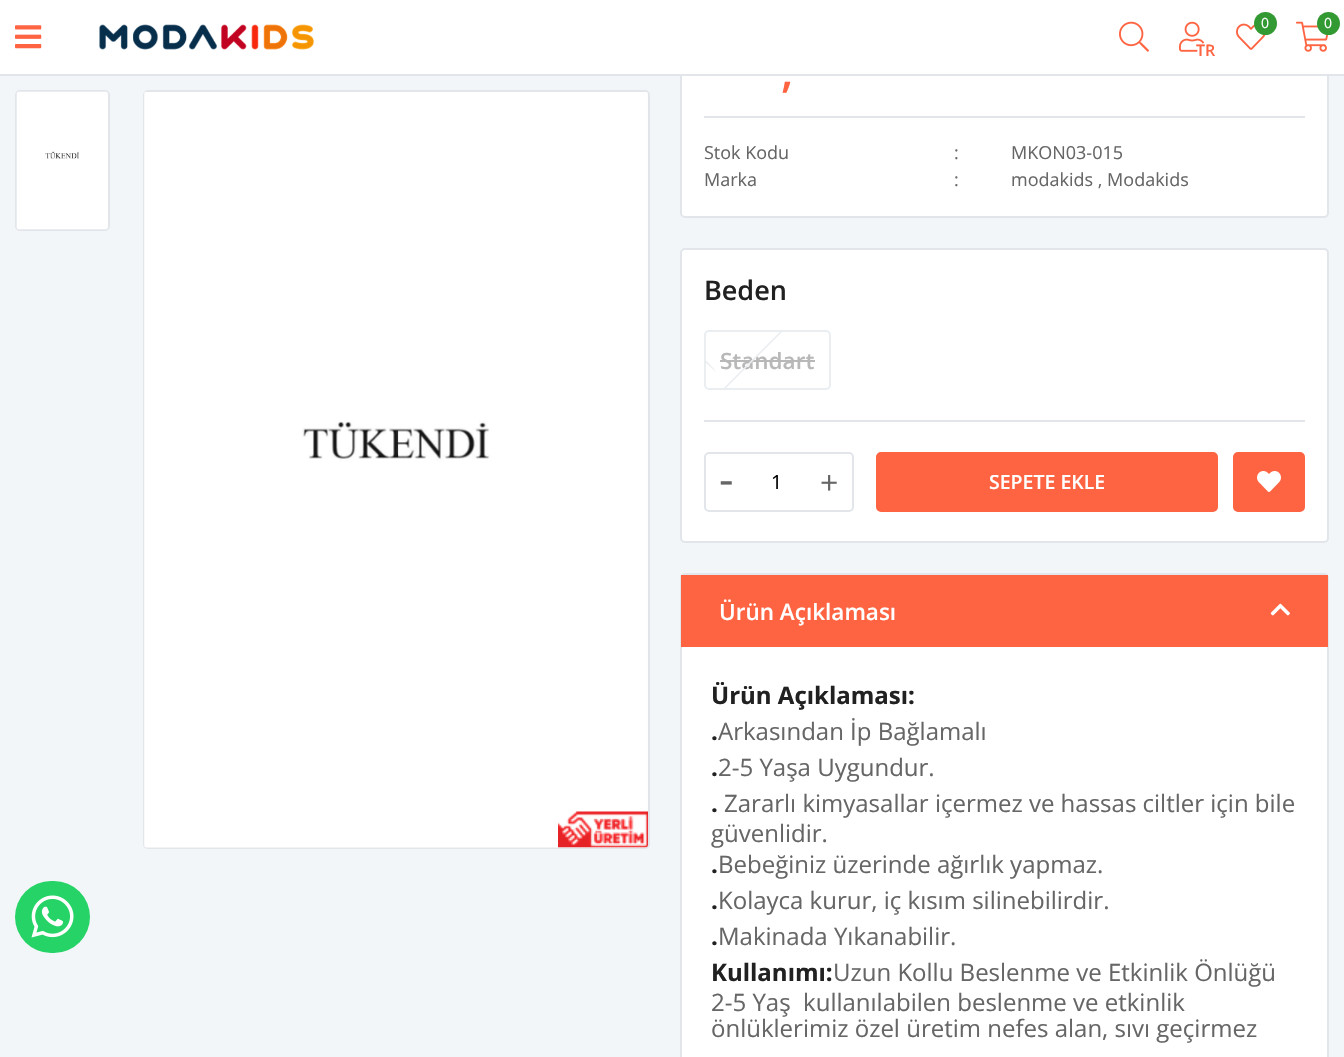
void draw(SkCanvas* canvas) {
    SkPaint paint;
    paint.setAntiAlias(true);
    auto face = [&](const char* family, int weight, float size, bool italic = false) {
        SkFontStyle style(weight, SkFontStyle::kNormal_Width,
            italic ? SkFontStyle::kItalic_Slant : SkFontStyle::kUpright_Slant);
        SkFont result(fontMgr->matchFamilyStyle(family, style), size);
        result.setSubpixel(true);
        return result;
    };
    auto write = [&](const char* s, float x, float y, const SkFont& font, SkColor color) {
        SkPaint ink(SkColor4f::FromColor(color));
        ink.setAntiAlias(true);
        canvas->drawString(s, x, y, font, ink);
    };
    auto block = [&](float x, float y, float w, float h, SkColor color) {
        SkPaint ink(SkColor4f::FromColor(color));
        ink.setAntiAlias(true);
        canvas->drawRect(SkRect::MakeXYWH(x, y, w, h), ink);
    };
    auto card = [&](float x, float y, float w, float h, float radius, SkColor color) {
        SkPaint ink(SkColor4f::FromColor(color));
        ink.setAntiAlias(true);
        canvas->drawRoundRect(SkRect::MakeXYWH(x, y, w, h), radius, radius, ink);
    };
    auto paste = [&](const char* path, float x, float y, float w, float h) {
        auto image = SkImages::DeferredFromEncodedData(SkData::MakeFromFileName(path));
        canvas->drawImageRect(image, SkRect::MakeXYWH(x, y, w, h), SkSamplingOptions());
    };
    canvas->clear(SkColorSetRGB(243, 246, 249));
    paint.setColor(SK_ColorWHITE);
    canvas->drawRoundRect(SkRect::MakeXYWH(681, -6, 647, 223), 4, 4, paint);
    paint.setStyle(SkPaint::kStroke_Style);
    paint.setStrokeWidth(2);
    paint.setColor(SkColorSetRGB(226, 230, 235));
    canvas->drawRoundRect(SkRect::MakeXYWH(681, -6, 647, 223), 4, 4, paint);
    block(0, 0, 1344, 74, SK_ColorWHITE);
    block(0, 74, 1344, 2, SkColorSetRGB(226, 230, 235));
    paste("pic1.png", 15, 25, 27, 24);
    paste("pic2.png", 99, 24, 215, 26);
    paste("pic3.png", 1119, 21, 30, 31);
    paste("pic4.png", 1179, 21, 26, 31);
    paint.setStyle(SkPaint::kFill_Style);
    paint.setColor(SK_ColorWHITE);
    canvas->drawCircle(1208.5f, 53.5f, 11.5f, paint);
    auto kFont1 = face("Open Sans", 600, 16);
    write("TR", 1196, 56, kFont1, SkColorSetRGB(255, 100, 66));
    paste("pic5.png", 1236, 23, 30, 27);
    paint.setColor(SkColorSetRGB(51, 153, 51));
    canvas->drawCircle(1265.5f, 23.5f, 11.5f, paint);
    auto kFont2 = face("Open Sans", 400, 14);
    write("0", 1261, 28, kFont2, SK_ColorWHITE);
    paste("pic6.png", 1296, 21, 33, 31);
    canvas->drawCircle(1328.5f, 23.5f, 11.5f, paint);
    write("0", 1324, 28, kFont2, SK_ColorWHITE);
    card(15, 881, 75, 72, 36, SkColorSetRGB(37, 211, 102));
    paste("pic7.png", 31, 895, 43, 43);
    paint.setStyle(SkPaint::kStroke_Style);
    paint.setColor(SkColorSetRGB(226, 230, 235));
    canvas->drawRoundRect(SkRect::MakeXYWH(16, 91, 93, 139), 4, 4, paint);
    paste("pic8.png", 16, 91, 92, 139);
    canvas->drawRoundRect(SkRect::MakeXYWH(144, 91, 505, 757), 4, 4, paint);
    paste("pic9.png", 144, 92, 504, 756);
    paste("pic10.png", 558, 811, 90, 37);
    block(704, 116, 601, 2, SkColorSetRGB(226, 230, 235));
    auto kFont3 = face("Open Sans", 600, 45);
    write(",", 781, 87, kFont3, SkColorSetRGB(255, 100, 66));
    auto kFont4 = face("Open Sans", 400, 18);
    write("Stok Kodu", 704, 159, kFont4, SkColorSetRGB(102, 102, 102));
    write(":", 954, 159, kFont4, SkColorSetRGB(102, 102, 102));
    write("MKON03-015", 1011, 159, kFont4, SkColorSetRGB(102, 102, 102));
    write("Marka", 704, 186, kFont4, SkColorSetRGB(102, 102, 102));
    write(":", 954, 186, kFont4, SkColorSetRGB(102, 102, 102));
    write("modakids , Modakids", 1011, 186, kFont4, SkColorSetRGB(102, 102, 102));
    paint.setStyle(SkPaint::kFill_Style);
    paint.setColor(SK_ColorWHITE);
    canvas->drawRoundRect(SkRect::MakeXYWH(681, 249, 647, 293), 4, 4, paint);
    paint.setStyle(SkPaint::kStroke_Style);
    paint.setColor(SkColorSetRGB(226, 230, 235));
    canvas->drawRoundRect(SkRect::MakeXYWH(681, 249, 647, 293), 4, 4, paint);
    block(704, 420, 601, 2, SkColorSetRGB(226, 230, 235));
    auto kFont5 = face("Open Sans", 600, 27);
    write("Beden", 704, 300, kFont5, SkColorSetRGB(33, 33, 33));
    paint.setColor(SkColorSetRGB(235, 238, 241));
    canvas->drawRoundRect(SkRect::MakeXYWH(705, 331, 125, 58), 4, 4, paint);
    auto kFont6 = face("Open Sans", 600, 22.5f);
    write("Standart", 720, 369, kFont6, SkColorSetRGB(184, 184, 184));
    block(720, 360, 95, 2, SkColorSetRGB(184, 184, 184));
    paint.setStyle(SkPaint::kFill_Style);
    canvas->drawPath(SkPathBuilder().moveTo(782, 332).lineTo(725, 389).lineTo(723, 389).lineTo(780, 332).close().detach(), paint);
    {
        const SkColor colors[] = {SkColorSetARGB(0, 235, 238, 241), SkColorSetRGB(235, 238, 241), SkColorSetRGB(235, 238, 241), SkColorSetARGB(0, 235, 238, 241)};
        const float stops[] = {0, 0, 0.5f, 0.5f};
        const SkPoint ends[] = {{751, 360}, {753, 362}};
        paint.setShader(SkGradientShader::MakeLinear(ends, colors, stops, 4, SkTileMode::kClamp));
        paint.setAlpha(255);
    }
    canvas->drawPath(SkPathBuilder().moveTo(782, 332).lineTo(725, 389).lineTo(723, 389).lineTo(780, 332).close().detach(), paint);
    paint.setShader(nullptr);
    paint.setColor(SkColorSetRGB(235, 238, 241));
    canvas->drawPath(SkPathBuilder().moveTo(705.5f, 360).cubicTo(711.5f, 366, 716, 371, 715.5f, 371.5f).lineTo(705, 362).lineTo(705, 359.5f).close().detach(), paint);
    paint.setStyle(SkPaint::kStroke_Style);
    paint.setColor(SkColorSetRGB(226, 230, 235));
    canvas->drawRoundRect(SkRect::MakeXYWH(705, 453, 148, 58), 4, 4, paint);
    auto kFont7 = face("Open Sans", 400, 45);
    write("-", 719, 495, kFont7, SkColorSetRGB(102, 102, 102));
    auto kFont8 = face("Open Sans", 400, 19.5f);
    write("1", 771, 489, kFont8, SK_ColorBLACK);
    auto kFont9 = face("Open Sans", 400, 32);
    write("+", 820, 494, kFont9, SkColorSetRGB(102, 102, 102));
    paint.setStyle(SkPaint::kFill_Style);
    paint.setColor(SkColorSetRGB(255, 100, 66));
    canvas->drawRoundRect(SkRect::MakeXYWH(877, 453, 340, 58), 4, 4, paint);
    paint.setStyle(SkPaint::kStroke_Style);
    canvas->drawRoundRect(SkRect::MakeXYWH(877, 453, 340, 58), 4, 4, paint);
    auto kFont10 = face("Open Sans", 600, 19.5f);
    write("SEPETE EKLE", 989, 489, kFont10, SK_ColorWHITE);
    paint.setStyle(SkPaint::kFill_Style);
    canvas->drawRoundRect(SkRect::MakeXYWH(1234, 453, 70, 58), 4, 4, paint);
    paint.setStyle(SkPaint::kStroke_Style);
    canvas->drawRoundRect(SkRect::MakeXYWH(1234, 453, 70, 58), 4, 4, paint);
    paste("pic11.png", 1257, 471, 24, 21);
    paint.setStyle(SkPaint::kFill_Style);
    paint.setColor(SK_ColorWHITE);
    canvas->drawRoundRect(SkRect::MakeXYWH(681, 574, 647, 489), 4, 4, paint);
    paint.setStyle(SkPaint::kStroke_Style);
    paint.setColor(SkColorSetRGB(226, 230, 235));
    canvas->drawRoundRect(SkRect::MakeXYWH(681, 574, 647, 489), 4, 4, paint);
    block(681, 575, 647, 72, SkColorSetRGB(255, 100, 66));
    write("Ürün Açıklaması", 719, 620, kFont6, SK_ColorWHITE);
    paste("pic12.png", 1270, 603, 20, 13);
    auto kFont11 = face("Open Sans", 700, 24);
    write("Ürün Açıklaması:", 711, 704, kFont11, SkColorSetRGB(33, 33, 33));
    write(".", 711, 740, kFont11, SkColorSetRGB(33, 33, 33));
    auto kFont12 = face("Open Sans", 400, 24);
    write("Arkasından İp Bağlamalı", 718, 740, kFont12, SkColorSetRGB(102, 102, 102));
    write(".", 711, 776, kFont11, SkColorSetRGB(33, 33, 33));
    write("2-5 Yaşa Uygundur.", 718, 776, kFont12, SkColorSetRGB(102, 102, 102));
    write(".", 711, 812, kFont11, SkColorSetRGB(33, 33, 33));
    write("Zararlı kimyasallar içermez ve hassas ciltler için bile", 724, 812, kFont12, SkColorSetRGB(102, 102, 102));
    write("güvenlidir.", 711, 842, kFont12, SkColorSetRGB(102, 102, 102));
    write(".", 711, 873, kFont11, SkColorSetRGB(33, 33, 33));
    write("Bebeğiniz üzerinde ağırlık yapmaz.", 718, 873, kFont12, SkColorSetRGB(102, 102, 102));
    write(".", 711, 909, kFont11, SkColorSetRGB(33, 33, 33));
    write("Kolayca kurur, iç kısım silinebilirdir.", 718, 909, kFont12, SkColorSetRGB(102, 102, 102));
    write(".", 711, 945, kFont11, SkColorSetRGB(33, 33, 33));
    write("Makinada Yıkanabilir.", 718, 945, kFont12, SkColorSetRGB(102, 102, 102));
    write("Kullanımı:", 711, 981, kFont11, SkColorSetRGB(33, 33, 33));
    write("Uzun Kollu Beslenme ve Etkinlik Önlüğü", 833, 981, kFont12, SkColorSetRGB(102, 102, 102));
    write("2-5 Yaş  kullanılabilen beslenme ve etkinlik", 711, 1011, kFont12, SkColorSetRGB(102, 102, 102));
    write("önlüklerimiz özel üretim nefes alan, sıvı geçirmez", 711, 1037, kFont12, SkColorSetRGB(102, 102, 102));
}
